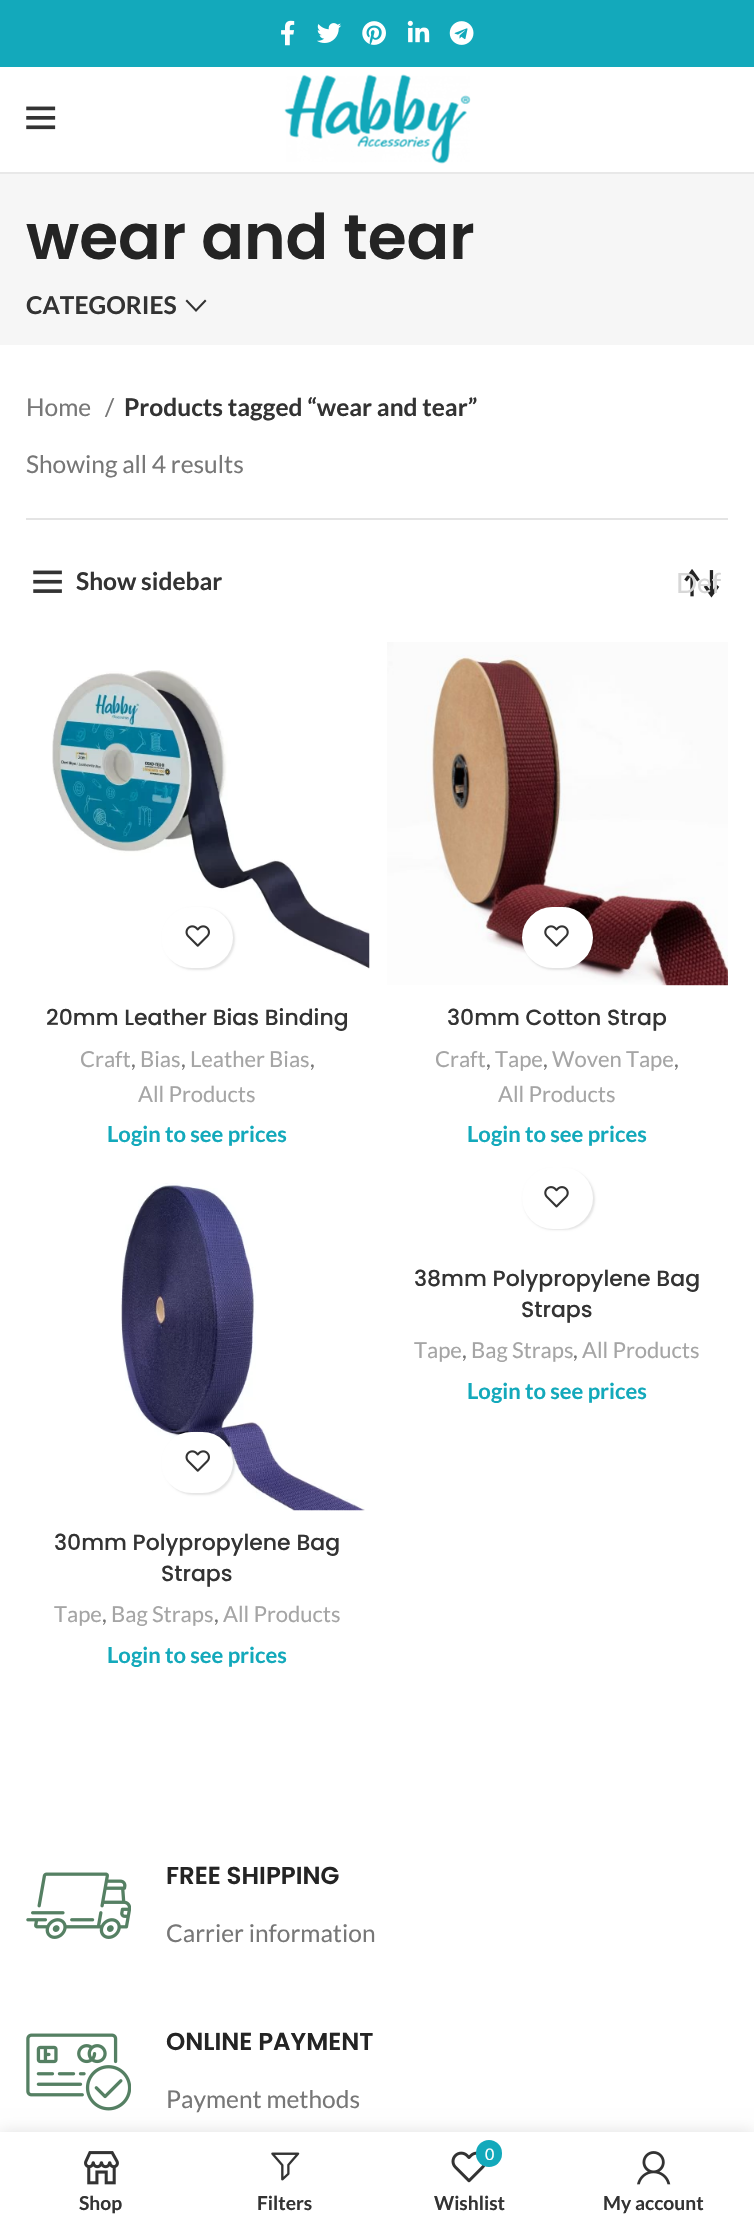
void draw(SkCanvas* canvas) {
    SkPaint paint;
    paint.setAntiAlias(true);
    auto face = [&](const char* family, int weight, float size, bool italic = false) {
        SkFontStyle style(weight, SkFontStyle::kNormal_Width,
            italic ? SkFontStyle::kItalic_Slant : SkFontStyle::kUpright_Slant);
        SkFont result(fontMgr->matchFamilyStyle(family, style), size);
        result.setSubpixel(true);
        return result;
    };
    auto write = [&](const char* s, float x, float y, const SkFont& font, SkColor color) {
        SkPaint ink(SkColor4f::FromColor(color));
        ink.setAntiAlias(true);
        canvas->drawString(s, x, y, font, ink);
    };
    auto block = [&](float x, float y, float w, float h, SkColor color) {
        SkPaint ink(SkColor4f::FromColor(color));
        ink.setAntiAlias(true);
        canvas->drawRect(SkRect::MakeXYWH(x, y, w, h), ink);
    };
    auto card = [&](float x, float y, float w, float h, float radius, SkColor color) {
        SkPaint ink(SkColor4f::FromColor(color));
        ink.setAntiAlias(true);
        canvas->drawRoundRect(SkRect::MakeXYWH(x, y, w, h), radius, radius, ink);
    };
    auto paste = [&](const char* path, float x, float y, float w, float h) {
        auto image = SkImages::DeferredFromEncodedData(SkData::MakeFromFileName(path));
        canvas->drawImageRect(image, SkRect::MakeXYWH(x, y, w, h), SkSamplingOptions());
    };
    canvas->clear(SK_ColorWHITE);
    block(0, 0, 754, 67, SkColorSetRGB(19, 169, 187));
    paste("pic1.png", 281, 20, 14, 26);
    paste("pic2.png", 317, 23, 25, 20);
    paste("pic3.png", 362, 21, 24, 24);
    paste("pic4.png", 407, 20, 23, 23);
    paste("pic5.png", 449, 21, 25, 24);
    block(0, 172, 754, 2, SkColorSetRGB(232, 232, 232));
    paste("pic6.png", 26, 106, 30, 24);
    paste("pic7.png", 284, 74, 187, 90);
    block(0, 174, 754, 171, SkColorSetRGB(246, 246, 246));
    auto kFont1 = face("Poppins", 600, 63);
    write("wear and tear", 26, 259, kFont1, SkColorSetRGB(36, 36, 36));
    auto kFont2 = face("Lato", 700, 24.5f);
    write("CATEGORIES", 26, 314, kFont2, SkColorSetRGB(51, 51, 51));
    paint.setColor(SkColorSetRGB(51, 51, 51));
    canvas->drawPath(SkPathBuilder().moveTo(205, 299.5f).lineTo(206.5f, 301).lineTo(196, 312).lineTo(185.5f, 301).lineTo(187, 299.5f).lineTo(196, 309).close().detach(), paint);
    block(26, 518, 702, 2, SkColorSetRGB(228, 228, 228));
    auto kFont3 = face("Lato", 400, 24.5f);
    write("Home", 26, 416, kFont3, SkColorSetRGB(119, 119, 119));
    write("/", 105, 416, kFont3, SkColorSetRGB(119, 119, 119));
    write("Products tagged “wear and tear”", 124, 416, kFont2, SkColorSetRGB(51, 51, 51));
    write("Showing all 4 results", 26, 473, kFont3, SkColorSetRGB(119, 119, 119));
    paste("pic8.png", 33, 570, 29, 23);
    write("Show sidebar", 76, 590, kFont2, SkColorSetRGB(51, 51, 51));
    paste("pic9.png", 684, 569, 36, 29);
    auto kFont4 = face("Lato", 400, 28);
    write("Def", 676, 593, kFont4, SkColorSetRGB(215, 215, 215));
    paste("pic10.png", 52, 670, 318, 299);
    paint.setColor(SkColorSetARGB(26, 0, 0, 0));
    paint.setMaskFilter(SkMaskFilter::MakeBlur(kNormal_SkBlurStyle, 1));
    canvas->drawRoundRect(SkRect::MakeXYWH(163, 908, 72, 62), 31, 31, paint);
    paint.setMaskFilter(nullptr);
    card(161, 907, 72, 61, 30.5f, SK_ColorWHITE);
    paste("pic11.png", 185, 925, 25, 22);
    auto kFont5 = face("Poppins", 500, 22);
    write("20mm Leather Bias Binding", 46, 1025, kFont5, SkColorSetRGB(51, 51, 51));
    auto kFont6 = face("Lato", 400, 22);
    write("Craft", 80, 1067, kFont6, SkColorSetRGB(165, 165, 165));
    write(",", 131, 1067, kFont6, SkColorSetRGB(119, 119, 119));
    write("Bias", 140, 1067, kFont6, SkColorSetRGB(165, 165, 165));
    write(",", 181, 1067, kFont6, SkColorSetRGB(119, 119, 119));
    write("Leather Bias", 190, 1067, kFont6, SkColorSetRGB(165, 165, 165));
    write(",", 310, 1067, kFont6, SkColorSetRGB(119, 119, 119));
    write("All Products", 138, 1102, kFont6, SkColorSetRGB(165, 165, 165));
    auto kFont7 = face("Lato", 700, 22);
    write("Login to see prices", 107, 1142, kFont7, SkColorSetRGB(19, 169, 187));
    paste("pic12.png", 387, 642, 341, 344);
    paint.setMaskFilter(SkMaskFilter::MakeBlur(kNormal_SkBlurStyle, 1));
    canvas->drawRoundRect(SkRect::MakeXYWH(523, 908, 72, 62), 31, 31, paint);
    paint.setMaskFilter(nullptr);
    card(522, 907, 71, 61, 30.5f, SK_ColorWHITE);
    paste("pic13.png", 544, 925, 25, 22);
    write("30mm Cotton Strap", 447, 1025, kFont5, SkColorSetRGB(51, 51, 51));
    write("Craft", 435, 1067, kFont6, SkColorSetRGB(165, 165, 165));
    write(",", 486, 1067, kFont6, SkColorSetRGB(119, 119, 119));
    write("Tape", 495, 1067, kFont6, SkColorSetRGB(165, 165, 165));
    write(",", 543, 1067, kFont6, SkColorSetRGB(119, 119, 119));
    write("Woven Tape", 552, 1067, kFont6, SkColorSetRGB(165, 165, 165));
    write(",", 674, 1067, kFont6, SkColorSetRGB(119, 119, 119));
    write("All Products", 498, 1102, kFont6, SkColorSetRGB(165, 165, 165));
    write("Login to see prices", 467, 1142, kFont7, SkColorSetRGB(19, 169, 187));
    paint.setMaskFilter(SkMaskFilter::MakeBlur(kNormal_SkBlurStyle, 1));
    canvas->drawRoundRect(SkRect::MakeXYWH(523, 1169, 72, 61), 30.5f, 30.5f, paint);
    paint.setMaskFilter(nullptr);
    card(522, 1167, 71, 62, 31, SK_ColorWHITE);
    paste("pic14.png", 544, 1186, 25, 22);
    write("38mm Polypropylene Bag", 414, 1286, kFont5, SkColorSetRGB(51, 51, 51));
    write("Straps", 521, 1317, kFont5, SkColorSetRGB(51, 51, 51));
    write("Tape", 414, 1358, kFont6, SkColorSetRGB(165, 165, 165));
    write(",", 462, 1358, kFont6, SkColorSetRGB(119, 119, 119));
    write("Bag Straps", 471, 1358, kFont6, SkColorSetRGB(165, 165, 165));
    write(",", 573, 1358, kFont6, SkColorSetRGB(119, 119, 119));
    write("All Products", 582, 1358, kFont6, SkColorSetRGB(165, 165, 165));
    write("Login to see prices", 467, 1399, kFont7, SkColorSetRGB(19, 169, 187));
    paste("pic15.png", 121, 1183, 244, 328);
    paint.setMaskFilter(SkMaskFilter::MakeBlur(kNormal_SkBlurStyle, 1));
    canvas->drawRoundRect(SkRect::MakeXYWH(163, 1433, 72, 62), 31, 31, paint);
    paint.setMaskFilter(nullptr);
    card(161, 1432, 72, 61, 30.5f, SK_ColorWHITE);
    paste("pic11.png", 185, 1450, 25, 22);
    write("30mm Polypropylene Bag", 54, 1550, kFont5, SkColorSetRGB(51, 51, 51));
    write("Straps", 161, 1581, kFont5, SkColorSetRGB(51, 51, 51));
    write("Tape", 54, 1622, kFont6, SkColorSetRGB(165, 165, 165));
    write(",", 102, 1622, kFont6, SkColorSetRGB(119, 119, 119));
    write("Bag Straps", 111, 1622, kFont6, SkColorSetRGB(165, 165, 165));
    write(",", 214, 1622, kFont6, SkColorSetRGB(119, 119, 119));
    write("All Products", 223, 1622, kFont6, SkColorSetRGB(165, 165, 165));
    write("Login to see prices", 107, 1663, kFont7, SkColorSetRGB(19, 169, 187));
    paste("pic16.png", 26, 1872, 105, 67);
    auto kFont8 = face("Poppins", 600, 24.5f);
    write("FREE SHIPPING", 166, 1884, kFont8, SkColorSetRGB(36, 36, 36));
    write("Carrier information", 166, 1942, kFont3, SkColorSetRGB(119, 119, 119));
    paste("pic17.png", 26, 2033, 105, 78);
    write("ONLINE PAYMENT", 166, 2050, kFont8, SkColorSetRGB(36, 36, 36));
    write("Payment methods", 166, 2108, kFont3, SkColorSetRGB(119, 119, 119));
    paint.setColor(SkColorSetARGB(31, 0, 0, 0));
    paint.setMaskFilter(SkMaskFilter::MakeBlur(kNormal_SkBlurStyle, 8));
    canvas->drawRect(SkRect::MakeXYWH(0, 2132, 754, 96), paint);
    paint.setMaskFilter(nullptr);
    block(0, 2132, 754, 95, SK_ColorWHITE);
    paste("pic18.png", 84, 2151, 35, 34);
    auto kFont9 = face("Lato", 700, 19.25f);
    write("Shop", 79, 2210, kFont9, SkColorSetRGB(51, 51, 51));
    paste("pic19.png", 271, 2152, 29, 29);
    write("Filters", 257, 2210, kFont9, SkColorSetRGB(51, 51, 51));
    paste("pic20.png", 451, 2151, 35, 32);
    card(476, 2140, 26, 27, 13, SkColorSetRGB(19, 169, 187));
    auto kFont10 = face("Lato", 400, 16);
    write("0", 485, 2160, kFont10, SK_ColorWHITE);
    write("Wishlist", 434, 2210, kFont9, SkColorSetRGB(51, 51, 51));
    paste("pic21.png", 637, 2151, 34, 34);
    write("My account", 603, 2210, kFont9, SkColorSetRGB(51, 51, 51));
}
